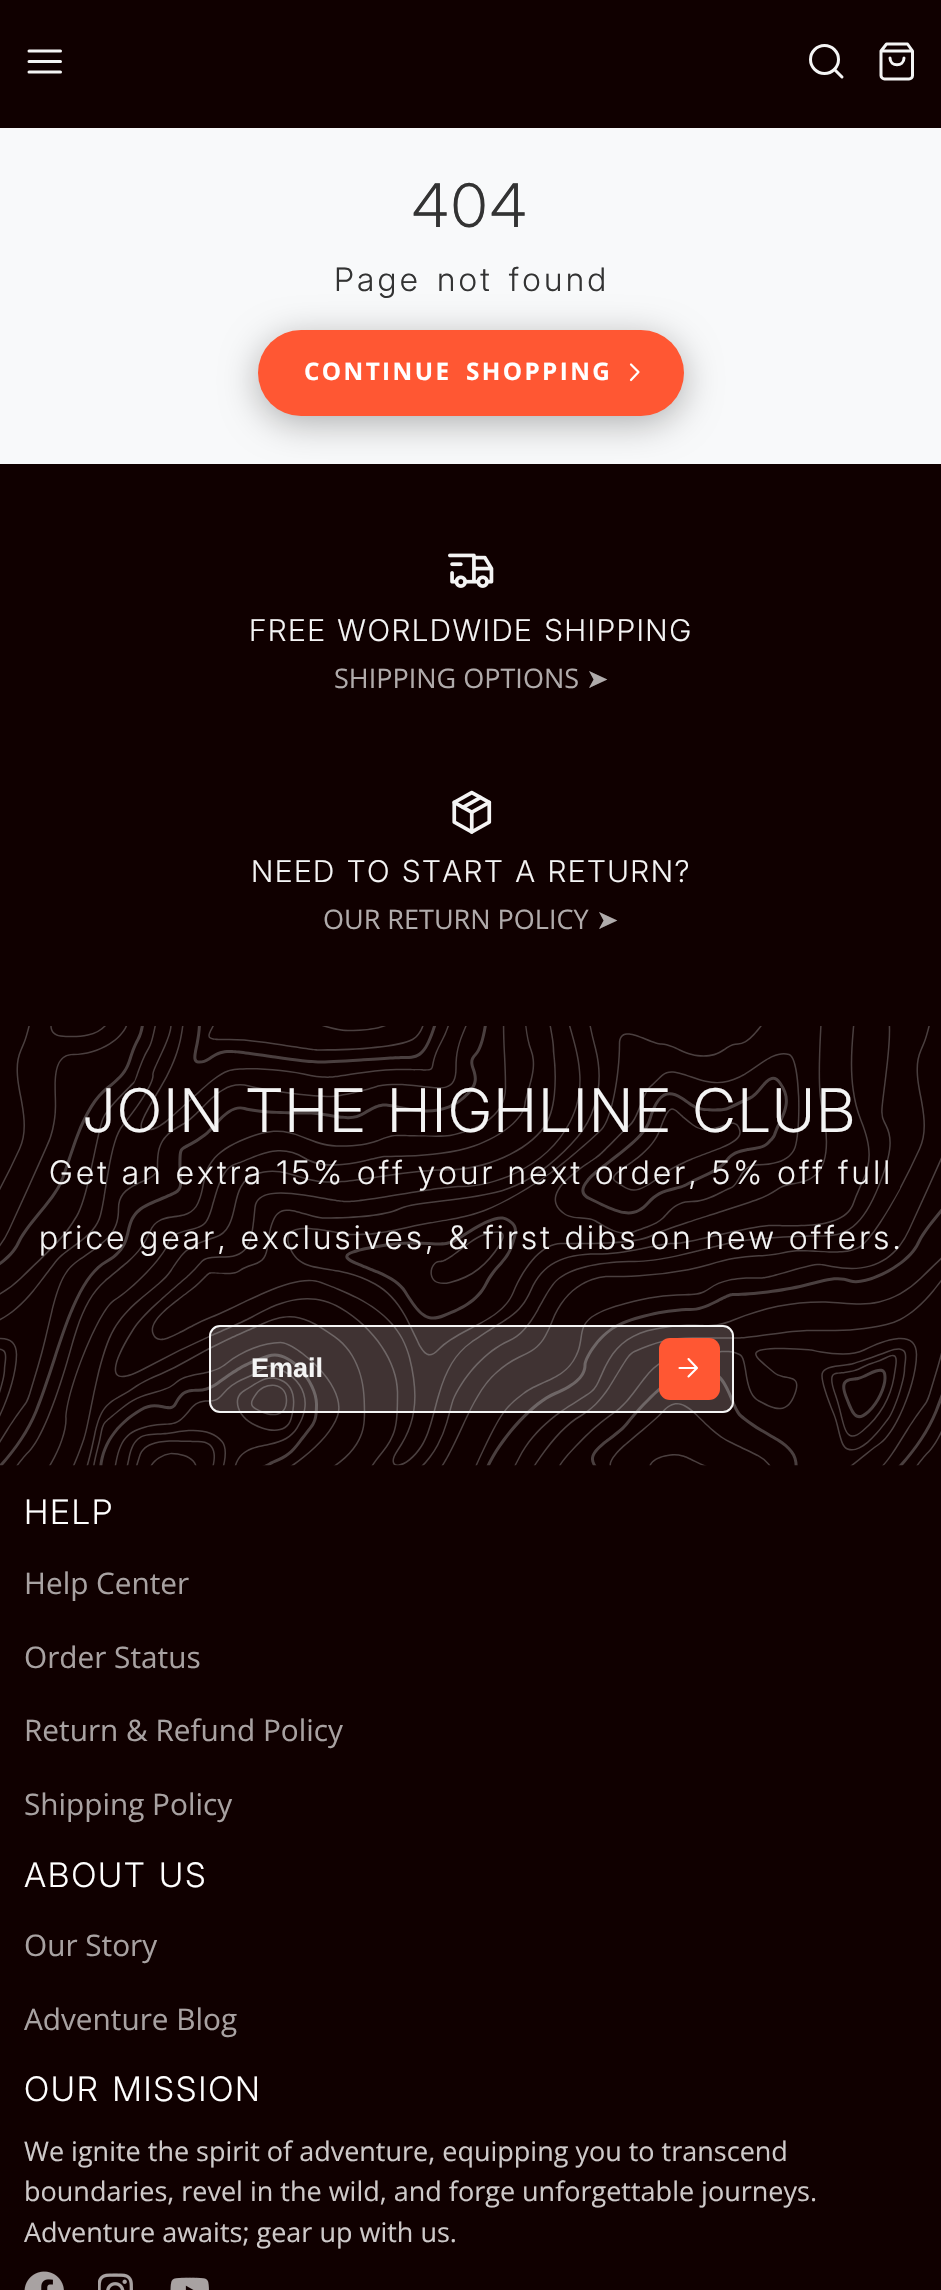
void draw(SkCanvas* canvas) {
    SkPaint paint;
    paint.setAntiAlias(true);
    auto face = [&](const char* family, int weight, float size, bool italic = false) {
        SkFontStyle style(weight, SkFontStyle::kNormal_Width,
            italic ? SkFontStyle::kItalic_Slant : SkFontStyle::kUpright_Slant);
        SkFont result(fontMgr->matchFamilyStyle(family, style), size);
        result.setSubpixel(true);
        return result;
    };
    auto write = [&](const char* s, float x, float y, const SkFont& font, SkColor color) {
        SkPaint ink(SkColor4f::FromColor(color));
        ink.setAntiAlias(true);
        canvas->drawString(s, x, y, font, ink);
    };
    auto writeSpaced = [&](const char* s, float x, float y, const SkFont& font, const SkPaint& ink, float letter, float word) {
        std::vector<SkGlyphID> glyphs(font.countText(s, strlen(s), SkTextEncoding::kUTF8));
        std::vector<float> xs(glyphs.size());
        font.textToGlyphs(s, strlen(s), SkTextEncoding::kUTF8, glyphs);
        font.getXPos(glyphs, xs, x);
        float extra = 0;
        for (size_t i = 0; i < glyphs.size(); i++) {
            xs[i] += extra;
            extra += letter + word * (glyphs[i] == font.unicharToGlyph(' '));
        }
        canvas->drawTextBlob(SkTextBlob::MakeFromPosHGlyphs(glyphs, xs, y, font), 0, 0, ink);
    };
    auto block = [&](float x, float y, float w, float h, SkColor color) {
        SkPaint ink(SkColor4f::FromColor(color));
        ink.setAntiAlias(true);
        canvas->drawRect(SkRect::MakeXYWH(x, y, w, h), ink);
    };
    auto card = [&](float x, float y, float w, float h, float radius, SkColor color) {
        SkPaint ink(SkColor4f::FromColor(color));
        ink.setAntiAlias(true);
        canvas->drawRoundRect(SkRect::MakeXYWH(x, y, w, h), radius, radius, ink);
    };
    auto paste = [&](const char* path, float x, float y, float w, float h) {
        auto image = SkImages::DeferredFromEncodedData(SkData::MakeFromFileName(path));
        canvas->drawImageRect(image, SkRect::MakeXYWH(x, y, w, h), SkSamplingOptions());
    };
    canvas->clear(SkColorSetRGB(248, 249, 250));
    block(0, 0, 941, 128, SkColorSetRGB(16, 0, 0));
    paint.setStyle(SkPaint::kStroke_Style);
    paint.setStrokeWidth(3);
    paint.setStrokeCap(SkPaint::kRound_Cap);
    paint.setStrokeJoin(SkPaint::kRound_Join);
    paint.setColor(SkColorSetRGB(244, 244, 244));
    canvas->drawPath(SkPathBuilder().moveTo(29, 61.5f).lineTo(60.5f, 61.5f).moveTo(29, 51).lineTo(60.5f, 51).moveTo(29, 72).lineTo(60.5f, 72).detach(), paint);
    paint.setStrokeCap(SkPaint::kButt_Cap);
    paint.setStrokeJoin(SkPaint::kMiter_Join);
    canvas->drawCircle(824.5f, 59.5f, 14, paint);
    paint.setStrokeCap(SkPaint::kRound_Cap);
    paint.setStrokeJoin(SkPaint::kRound_Join);
    canvas->drawPath(SkPathBuilder().moveTo(842, 77).lineTo(834.5f, 69.5f).detach(), paint);
    canvas->drawPath(SkPathBuilder().moveTo(886.5f, 44).lineTo(881, 51).lineTo(881, 75.5f).cubicTo(881, 77.5f, 883, 79, 884.5f, 79).lineTo(909, 79).cubicTo(911, 79, 912.5f, 77.5f, 912.5f, 75.5f).lineTo(912.5f, 51).lineTo(907.5f, 44).close().moveTo(882.5f, 51).lineTo(911, 51).moveTo(904, 58).cubicTo(904, 67, 890, 67, 890, 58).detach(), paint);
    auto kFont1 = face("Inter", 300, 60);
    paint.setStyle(SkPaint::kFill_Style);
    paint.setColor(SkColorSetRGB(51, 51, 51));
    writeSpaced("404", 412, 227, kFont1, paint, 3, 0);
    auto kFont2 = face("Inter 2", 300, 32.4f);
    writeSpaced("Page not found", 334, 291, kFont2, paint, 3.25f, 4);
    paint.setColor(SkColorSetARGB(77, 0, 0, 0));
    paint.setMaskFilter(SkMaskFilter::MakeBlur(kNormal_SkBlurStyle, 18));
    canvas->drawRoundRect(SkRect::MakeXYWH(258, 338, 426, 85), 42.5f, 42.5f, paint);
    paint.setMaskFilter(nullptr);
    card(258, 330, 426, 86, 43, SkColorSetRGB(255, 87, 51));
    auto kFont3 = face("Open Sans", 700, 24.25f);
    paint.setColor(SK_ColorWHITE);
    writeSpaced("CONTINUE SHOPPING", 304, 380, kFont3, paint, 2.4f, 6);
    paint.setStyle(SkPaint::kStroke_Style);
    paint.setStrokeWidth(2.2f);
    canvas->drawPath(SkPathBuilder().moveTo(631, 380).lineTo(638.5f, 372).lineTo(631, 364.5f).detach(), paint);
    block(0, 464, 941, 1826, SkColorSetRGB(16, 0, 0));
    paste("pic1.png", 448, 553, 46, 35);
    auto kFont4 = face("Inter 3", 300, 30);
    paint.setStyle(SkPaint::kFill_Style);
    paint.setColor(SkColorSetRGB(244, 244, 244));
    writeSpaced("FREE WORLDWIDE SHIPPING", 249, 641, kFont4, paint, 1.5f, 1.5f);
    auto kFont5 = face("Open Sans", 400, 27);
    write("SHIPPING OPTIONS", 334, 688, kFont5, SkColorSetRGB(176, 171, 171));
    auto kFont6 = face("DejaVu Sans", 400, 27);
    write("➤", 586, 688, kFont6, SkColorSetRGB(176, 171, 171));
    paste("pic2.png", 452, 790, 40, 44);
    writeSpaced("NEED TO START A RETURN?", 251, 882, kFont4, paint, 1.5f, 1.5f);
    write("OUR RETURN POLICY", 323, 929, kFont5, SkColorSetRGB(176, 171, 171));
    write("➤", 596, 929, kFont6, SkColorSetRGB(176, 171, 171));
    paste("pic3.png", 0, 1026, 941, 440);
    writeSpaced("JOIN THE HIGHLINE CLUB", 83, 1132, kFont1, paint, 3, 3);
    writeSpaced("Get an extra 15% off your next order, 5% off full", 49, 1184, kFont2, paint, 3.25f, 0);
    writeSpaced("price gear, exclusives, & first dibs on new offers.", 39, 1249, kFont2, paint, 3.25f, 0);
    paint.setStyle(SkPaint::kStroke_Style);
    paint.setStrokeWidth(2);
    paint.setStrokeCap(SkPaint::kButt_Cap);
    paint.setStrokeJoin(SkPaint::kMiter_Join);
    canvas->drawRoundRect(SkRect::MakeXYWH(210, 1326, 523, 86), 10, 10, paint);
    card(210, 1326, 522, 86, 9, SkColorSetARGB(51, 255, 255, 255));
    auto kFont7 = face("Liberation Sans", 700, 27);
    write("Email", 251, 1377, kFont7, SkColorSetRGB(244, 244, 244));
    card(659, 1338, 61, 62, 11, SkColorSetRGB(255, 87, 51));
    paint.setStrokeWidth(2.1f);
    paint.setStrokeCap(SkPaint::kRound_Cap);
    paint.setStrokeJoin(SkPaint::kRound_Join);
    paint.setColor(SK_ColorWHITE);
    canvas->drawPath(SkPathBuilder().moveTo(679.5f, 1368).lineTo(696, 1368).moveTo(688.5f, 1359).lineTo(697, 1368).lineTo(688.5f, 1376.5f).detach(), paint);
    auto kFont8 = face("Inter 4", 300, 33.75f);
    paint.setStyle(SkPaint::kFill_Style);
    writeSpaced("HELP", 24, 1524, kFont8, paint, 1.75f, 0);
    auto kFont9 = face("Open Sans", 400, 29.75f);
    write("Help Center", 24, 1594, kFont9, SkColorSetRGB(168, 162, 162));
    write("Order Status", 24, 1668, kFont9, SkColorSetRGB(168, 162, 162));
    write("Return & Refund Policy", 24, 1741, kFont9, SkColorSetRGB(168, 162, 162));
    write("Shipping Policy", 24, 1815, kFont9, SkColorSetRGB(168, 162, 162));
    writeSpaced("ABOUT US", 24, 1887, kFont8, paint, 1.75f, 2);
    write("Our Story", 24, 1956, kFont9, SkColorSetRGB(168, 162, 162));
    write("Adventure Blog", 24, 2030, kFont9, SkColorSetRGB(168, 162, 162));
    writeSpaced("OUR MISSION", 24, 2101, kFont8, paint, 1.75f, 2);
    write("We ignite the spirit of adventure, equipping you to transcend", 24, 2161, kFont5, SkColorSetRGB(206, 202, 202));
    write("boundaries, revel in the wild, and forge unforgettable journeys.", 24, 2201, kFont5, SkColorSetRGB(206, 202, 202));
    write("Adventure awaits; gear up with us.", 24, 2242, kFont5, SkColorSetRGB(206, 202, 202));
    paste("pic4.png", 24, 2271, 40, 19);
    paste("pic5.png", 98, 2273, 35, 17);
    paste("pic6.png", 170, 2277, 39, 13);
}
